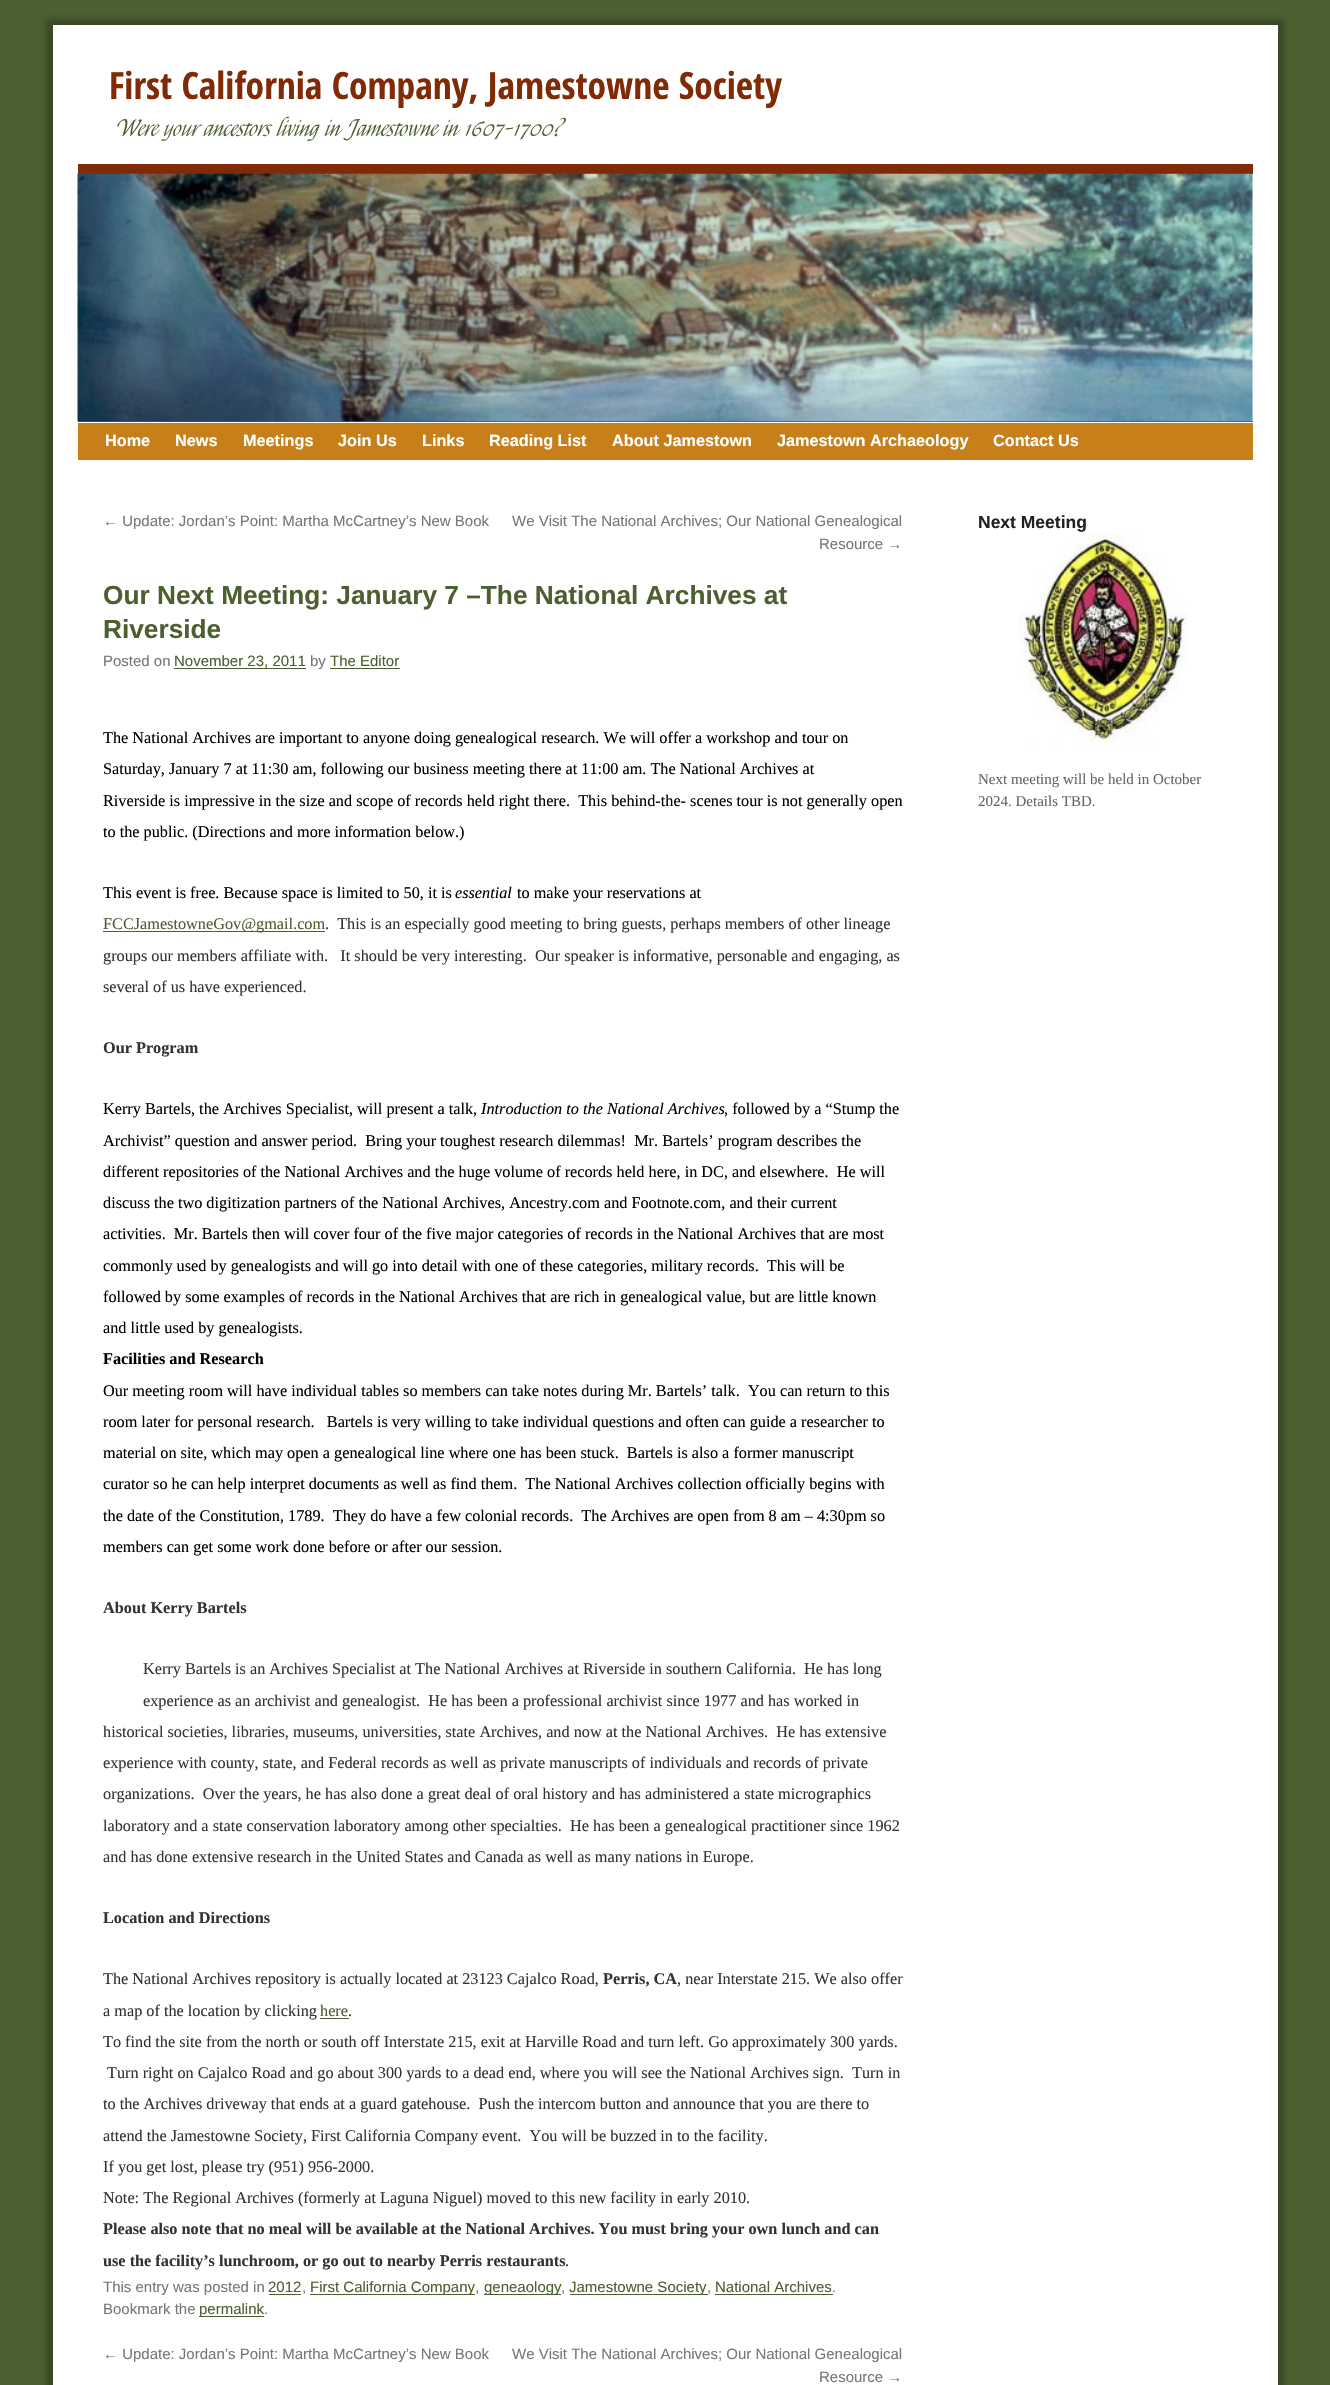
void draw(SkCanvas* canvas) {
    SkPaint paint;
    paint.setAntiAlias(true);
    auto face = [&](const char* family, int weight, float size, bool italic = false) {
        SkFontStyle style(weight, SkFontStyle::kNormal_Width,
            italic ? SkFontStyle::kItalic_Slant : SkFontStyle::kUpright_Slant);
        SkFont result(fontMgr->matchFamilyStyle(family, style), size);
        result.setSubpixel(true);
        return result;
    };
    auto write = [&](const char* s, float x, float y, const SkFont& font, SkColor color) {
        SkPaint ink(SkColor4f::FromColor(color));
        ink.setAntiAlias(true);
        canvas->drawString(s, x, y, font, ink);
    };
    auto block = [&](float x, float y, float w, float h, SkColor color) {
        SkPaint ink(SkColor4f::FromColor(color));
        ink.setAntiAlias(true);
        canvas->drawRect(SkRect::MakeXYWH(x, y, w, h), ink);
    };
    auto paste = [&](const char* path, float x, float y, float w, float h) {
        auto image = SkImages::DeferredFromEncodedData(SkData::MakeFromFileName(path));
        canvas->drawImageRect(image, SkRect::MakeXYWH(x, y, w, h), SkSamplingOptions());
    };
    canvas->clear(SkColorSetRGB(76, 95, 49));
    paint.setColor(SkColorSetARGB(64, 0, 0, 0));
    paint.setMaskFilter(SkMaskFilter::MakeBlur(kNormal_SkBlurStyle, 3));
    canvas->drawRect(SkRect::MakeXYWH(46, 19, 1238, 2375), paint);
    paint.setMaskFilter(nullptr);
    block(53, 25, 1225, 2360, SK_ColorWHITE);
    auto kFont1 = face("Open Sans Condensed", 700, 37.5f);
    write("First California Company, Jamestowne Society", 109, 99, kFont1, SkColorSetRGB(128, 43, 6));
    auto kFont2 = face("Felipa", 400, 22.5f, true);
    write("Were your ancestors living in Jamestowne in 1607-1700?", 115, 136, kFont2, SkColorSetRGB(76, 95, 48));
    block(78, 164, 1175, 10, SkColorSetRGB(128, 43, 6));
    block(78, 421, 1175, 1, SkColorSetRGB(76, 95, 48));
    paste("pic1.png", 77, 173, 1176, 249);
    block(78, 423, 1175, 37, SkColorSetRGB(199, 127, 25));
    auto kFont3 = face("Liberation Sans", 700, 16.25f);
    write("Home", 105, 446, kFont3, SK_ColorWHITE);
    write("News", 175, 446, kFont3, SK_ColorWHITE);
    write("Meetings", 243, 446, kFont3, SK_ColorWHITE);
    write("Join Us", 338, 446, kFont3, SK_ColorWHITE);
    write("Links", 422, 446, kFont3, SK_ColorWHITE);
    write("Reading List", 489, 446, kFont3, SK_ColorWHITE);
    write("About Jamestown", 612, 446, kFont3, SK_ColorWHITE);
    write("Jamestown Archaeology", 777, 446, kFont3, SK_ColorWHITE);
    write("Contact Us", 993, 446, kFont3, SK_ColorWHITE);
    auto kFont4 = face("Liberation Sans", 400, 15);
    write("← Update: Jordan’s Point: Martha McCartney’s New Book", 103, 526, kFont4, SkColorSetRGB(119, 119, 119));
    write("We Visit The National Archives; Our National Genealogical", 512, 526, kFont4, SkColorSetRGB(119, 119, 119));
    write("Resource →", 819, 549, kFont4, SkColorSetRGB(119, 119, 119));
    auto kFont5 = face("Liberation Sans", 700, 26.25f);
    write("Our Next Meeting: January 7 –The National Archives at", 103, 604, kFont5, SkColorSetRGB(76, 95, 48));
    write("Riverside", 103, 638, kFont5, SkColorSetRGB(76, 95, 48));
    write("Posted on", 103, 666, kFont4, SkColorSetRGB(119, 119, 119));
    write("November 23, 2011", 174, 666, kFont4, SkColorSetRGB(76, 95, 48));
    block(174, 668, 132, 1, SkColorSetRGB(76, 95, 48));
    write("by", 310, 666, kFont4, SkColorSetRGB(119, 119, 119));
    write("The Editor", 330, 666, kFont4, SkColorSetRGB(76, 95, 48));
    block(330, 668, 70, 1, SkColorSetRGB(76, 95, 48));
    auto kFont6 = face("Liberation Serif", 400, 16.25f);
    write("The National Archives are important to anyone doing genealogical research. We will offer a workshop and tour on", 103, 743, kFont6, SK_ColorBLACK);
    write("Saturday, January 7 at 11:30 am, following our business meeting there at 11:00 am. The National Archives at", 103, 774, kFont6, SK_ColorBLACK);
    write("Riverside is impressive in the size and scope of records held right there.  This behind-the- scenes tour is not generally open", 103, 806, kFont6, SK_ColorBLACK);
    write("to the public. (Directions and more information below.)", 103, 837, kFont6, SK_ColorBLACK);
    write("This event is free. Because space is limited to 50, it is", 103, 898, kFont6, SK_ColorBLACK);
    auto kFont7 = face("Liberation Serif", 400, 16.25f, true);
    write("essential", 455, 898, kFont7, SK_ColorBLACK);
    write("to make your reservations at", 517, 898, kFont6, SK_ColorBLACK);
    block(103, 931, 222, 1, SkColorSetRGB(76, 95, 48));
    write("FCCJamestowneGov@gmail.com", 103, 929, kFont6, SkColorSetRGB(76, 95, 48));
    write(".  This is an especially good meeting to bring guests, perhaps members of other lineage", 325, 929, kFont6, SkColorSetRGB(51, 51, 51));
    write("groups our members affiliate with.   It should be very interesting.  Our speaker is informative, personable and engaging, as", 103, 961, kFont6, SkColorSetRGB(51, 51, 51));
    write("several of us have experienced.", 103, 992, kFont6, SkColorSetRGB(51, 51, 51));
    auto kFont8 = face("Liberation Serif", 700, 16.25f);
    write("Our Program", 103, 1053, kFont8, SkColorSetRGB(51, 51, 51));
    write("Kerry Bartels, the Archives Specialist, will present a talk,", 103, 1114, kFont6, SK_ColorBLACK);
    write("Introduction to the National Archives", 481, 1114, kFont7, SK_ColorBLACK);
    write(", followed by a “Stump the", 724, 1114, kFont6, SK_ColorBLACK);
    write("Archivist” question and answer period.  Bring your toughest research dilemmas!  Mr. Bartels’ program describes the", 103, 1146, kFont6, SK_ColorBLACK);
    write("different repositories of the National Archives and the huge volume of records held here, in DC, and elsewhere.  He will", 103, 1177, kFont6, SK_ColorBLACK);
    write("discuss the two digitization partners of the National Archives, Ancestry.com and Footnote.com, and their current", 103, 1208, kFont6, SK_ColorBLACK);
    write("activities.  Mr. Bartels then will cover four of the five major categories of records in the National Archives that are most", 103, 1239, kFont6, SK_ColorBLACK);
    write("commonly used by genealogists and will go into detail with one of these categories, military records.  This will be", 103, 1271, kFont6, SK_ColorBLACK);
    write("followed by some examples of records in the National Archives that are rich in genealogical value, but are little known", 103, 1302, kFont6, SK_ColorBLACK);
    write("and little used by genealogists.", 103, 1333, kFont6, SK_ColorBLACK);
    write("Facilities and Research", 103, 1364, kFont8, SK_ColorBLACK);
    write("Our meeting room will have individual tables so members can take notes during Mr. Bartels’ talk.  You can return to this", 103, 1396, kFont6, SK_ColorBLACK);
    write("room later for personal research.   Bartels is very willing to take individual questions and often can guide a researcher to", 103, 1427, kFont6, SK_ColorBLACK);
    write("material on site, which may open a genealogical line where one has been stuck.  Bartels is also a former manuscript", 103, 1458, kFont6, SK_ColorBLACK);
    write("curator so he can help interpret documents as well as find them.  The National Archives collection officially begins with", 103, 1489, kFont6, SK_ColorBLACK);
    write("the date of the Constitution, 1789.  They do have a few colonial records.  The Archives are open from 8 am – 4:30pm so", 103, 1521, kFont6, SK_ColorBLACK);
    write("members can get some work done before or after our session.", 103, 1552, kFont6, SK_ColorBLACK);
    write("About Kerry Bartels", 103, 1613, kFont8, SkColorSetRGB(51, 51, 51));
    write("Kerry Bartels is an Archives Specialist at The National Archives at Riverside in southern California.  He has long", 143, 1674, kFont6, SkColorSetRGB(51, 51, 51));
    write("experience as an archivist and genealogist.  He has been a professional archivist since 1977 and has worked in", 143, 1706, kFont6, SkColorSetRGB(51, 51, 51));
    write("historical societies, libraries, museums, universities, state Archives, and now at the National Archives.  He has extensive", 103, 1737, kFont6, SkColorSetRGB(51, 51, 51));
    write("experience with county, state, and Federal records as well as private manuscripts of individuals and records of private", 103, 1768, kFont6, SkColorSetRGB(51, 51, 51));
    write("organizations.  Over the years, he has also done a great deal of oral history and has administered a state micrographics", 103, 1799, kFont6, SkColorSetRGB(51, 51, 51));
    write("laboratory and a state conservation laboratory among other specialties.  He has been a genealogical practitioner since 1962", 103, 1831, kFont6, SkColorSetRGB(51, 51, 51));
    write("and has done extensive research in the United States and Canada as well as many nations in Europe.", 103, 1862, kFont6, SkColorSetRGB(51, 51, 51));
    write("Location and Directions", 103, 1923, kFont8, SkColorSetRGB(51, 51, 51));
    write("The National Archives repository is actually located at 23123 Cajalco Road,", 103, 1984, kFont6, SkColorSetRGB(51, 51, 51));
    write("Perris, CA", 603, 1984, kFont8, SkColorSetRGB(51, 51, 51));
    write(", near Interstate 215. We also offer", 677, 1984, kFont6, SkColorSetRGB(51, 51, 51));
    write("a map of the location by clicking", 103, 2016, kFont6, SkColorSetRGB(51, 51, 51));
    write("here", 320, 2016, kFont6, SkColorSetRGB(76, 95, 48));
    write(".", 348, 2016, kFont6, SkColorSetRGB(51, 51, 51));
    block(320, 2018, 29, 1, SkColorSetRGB(76, 95, 48));
    write("To find the site from the north or south off Interstate 215, exit at Harville Road and turn left. Go approximately 300 yards.", 103, 2047, kFont6, SkColorSetRGB(51, 51, 51));
    write("Turn right on Cajalco Road and go about 300 yards to a dead end, where you will see the National Archives sign.  Turn in", 107, 2078, kFont6, SkColorSetRGB(51, 51, 51));
    write("to the Archives driveway that ends at a guard gatehouse.  Push the intercom button and announce that you are there to", 103, 2109, kFont6, SkColorSetRGB(51, 51, 51));
    write("attend the Jamestowne Society, First California Company event.  You will be buzzed in to the facility.", 103, 2141, kFont6, SkColorSetRGB(51, 51, 51));
    write("If you get lost, please try (951) 956-2000.", 103, 2172, kFont6, SkColorSetRGB(51, 51, 51));
    write("Note: The Regional Archives (formerly at Laguna Niguel) moved to this new facility in early 2010.", 103, 2203, kFont6, SkColorSetRGB(51, 51, 51));
    write("Please also note that no meal will be available at the National Archives. You must bring your own lunch and can", 103, 2234, kFont8, SkColorSetRGB(51, 51, 51));
    write("use the facility’s lunchroom, or go out to nearby Perris restaurants", 103, 2266, kFont8, SkColorSetRGB(51, 51, 51));
    write(".", 565, 2266, kFont6, SkColorSetRGB(51, 51, 51));
    write("This entry was posted in", 103, 2292, kFont4, SkColorSetRGB(119, 119, 119));
    write("2012", 268, 2292, kFont4, SkColorSetRGB(76, 95, 48));
    block(269, 2294, 32, 1, SkColorSetRGB(76, 95, 48));
    write(",", 302, 2292, kFont4, SkColorSetRGB(119, 119, 119));
    block(310, 2294, 165, 1, SkColorSetRGB(76, 95, 48));
    write("First California Company", 310, 2292, kFont4, SkColorSetRGB(76, 95, 48));
    write(",", 475, 2292, kFont4, SkColorSetRGB(119, 119, 119));
    block(484, 2294, 77, 1, SkColorSetRGB(76, 95, 48));
    write("geneaology", 484, 2292, kFont4, SkColorSetRGB(76, 95, 48));
    write(",", 561, 2292, kFont4, SkColorSetRGB(119, 119, 119));
    block(570, 2294, 138, 1, SkColorSetRGB(76, 95, 48));
    write("Jamestowne Society", 569, 2292, kFont4, SkColorSetRGB(76, 95, 48));
    write(",", 707, 2292, kFont4, SkColorSetRGB(119, 119, 119));
    write("National Archives", 715, 2292, kFont4, SkColorSetRGB(76, 95, 48));
    block(715, 2294, 118, 1, SkColorSetRGB(76, 95, 48));
    write(".", 832, 2292, kFont4, SkColorSetRGB(119, 119, 119));
    write("Bookmark the", 103, 2314, kFont4, SkColorSetRGB(119, 119, 119));
    block(199, 2316, 65, 1, SkColorSetRGB(76, 95, 48));
    write("permalink", 199, 2314, kFont4, SkColorSetRGB(76, 95, 48));
    write(".", 264, 2314, kFont4, SkColorSetRGB(119, 119, 119));
    write("← Update: Jordan’s Point: Martha McCartney’s New Book", 103, 2359, kFont4, SkColorSetRGB(119, 119, 119));
    write("We Visit The National Archives; Our National Genealogical", 512, 2359, kFont4, SkColorSetRGB(119, 119, 119));
    write("Resource →", 819, 2382, kFont4, SkColorSetRGB(119, 119, 119));
    auto kFont9 = face("Liberation Sans", 700, 17.5f);
    write("Next Meeting", 978, 528, kFont9, SkColorSetRGB(34, 34, 34));
    paste("pic2.png", 1018, 532, 170, 213);
    auto kFont10 = face("Liberation Serif", 400, 15);
    write("Next meeting will be held in October", 978, 784, kFont10, SkColorSetRGB(102, 102, 102));
    write("2024. Details TBD.", 978, 806, kFont10, SkColorSetRGB(102, 102, 102));
}
